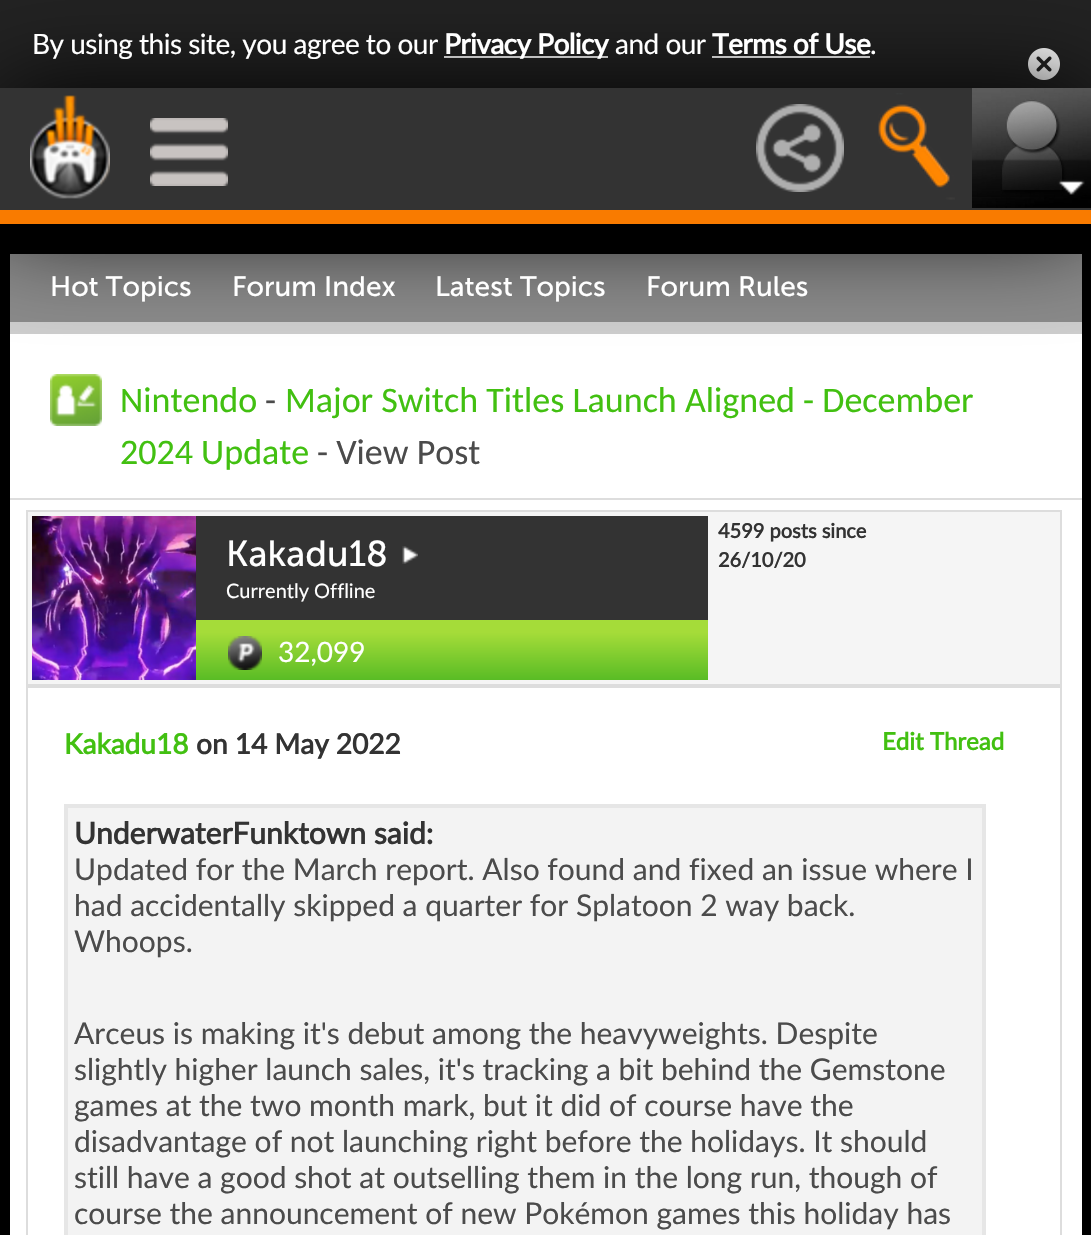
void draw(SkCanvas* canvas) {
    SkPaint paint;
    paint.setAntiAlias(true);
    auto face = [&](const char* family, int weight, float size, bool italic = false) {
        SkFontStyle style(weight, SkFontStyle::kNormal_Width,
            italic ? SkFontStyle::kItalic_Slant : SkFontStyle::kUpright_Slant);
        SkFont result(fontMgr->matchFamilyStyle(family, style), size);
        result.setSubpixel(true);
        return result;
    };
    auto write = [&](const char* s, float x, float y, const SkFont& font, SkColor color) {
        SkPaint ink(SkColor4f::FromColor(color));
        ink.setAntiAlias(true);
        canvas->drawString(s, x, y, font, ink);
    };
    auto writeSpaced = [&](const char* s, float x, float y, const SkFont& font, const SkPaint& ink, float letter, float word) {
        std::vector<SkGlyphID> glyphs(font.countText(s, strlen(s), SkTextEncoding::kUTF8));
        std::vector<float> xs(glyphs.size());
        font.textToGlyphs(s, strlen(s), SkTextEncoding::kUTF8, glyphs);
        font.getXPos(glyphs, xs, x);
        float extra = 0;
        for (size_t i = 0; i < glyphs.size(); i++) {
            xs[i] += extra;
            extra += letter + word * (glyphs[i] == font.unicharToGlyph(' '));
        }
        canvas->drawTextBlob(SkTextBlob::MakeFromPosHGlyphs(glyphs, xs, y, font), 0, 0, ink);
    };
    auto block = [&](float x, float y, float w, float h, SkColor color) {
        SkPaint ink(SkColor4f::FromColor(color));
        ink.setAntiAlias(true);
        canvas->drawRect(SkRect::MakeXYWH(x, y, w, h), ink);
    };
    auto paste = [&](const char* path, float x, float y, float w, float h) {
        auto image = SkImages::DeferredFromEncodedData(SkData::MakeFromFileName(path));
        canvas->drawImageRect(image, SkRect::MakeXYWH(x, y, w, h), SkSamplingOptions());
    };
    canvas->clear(SK_ColorBLACK);
    block(0, 0, 1091, 88, SkColorSetRGB(34, 34, 34));
    block(444, 56, 164, 2, SK_ColorWHITE);
    block(712, 56, 158, 2, SK_ColorWHITE);
    paste("pic7.png", 1028, 48, 32, 32);
    block(10, 334, 1072, 901, SK_ColorWHITE);
    block(10, 254, 1072, 68, SkColorSetRGB(138, 138, 138));
    block(10, 322, 1072, 12, SkColorSetRGB(205, 205, 205));
    paste("pic8.png", 50, 374, 52, 52);
    paint.setColor(SK_ColorBLACK);
    paint.setMaskFilter(SkMaskFilter::MakeBlur(kNormal_SkBlurStyle, 50));
    canvas->drawRect(SkRect::MakeXYWH(0, 90, 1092, 136), paint);
    paint.setMaskFilter(nullptr);
    block(0, 88, 1091, 122, SkColorSetRGB(51, 51, 51));
    paste("pic1.png", 30, 95, 80, 104);
    paste("pic2.png", 150, 118, 78, 68);
    paste("pic3.png", 756, 104, 88, 88);
    paste("pic4.png", 878, 93, 77, 107);
    paste("pic5.png", 972, 88, 119, 120);
    paste("pic6.png", 972, 159, 119, 38);
    block(0, 210, 1091, 14, SkColorSetRGB(249, 123, 0));
    auto kFont1 = face("Lato", 400, 28);
    paint.setColor(SK_ColorWHITE);
    writeSpaced("By using this site, you agree to our", 32, 54, kFont1, paint, -0.5f, 0);
    auto kFont2 = face("Lato", 700, 28);
    writeSpaced("Privacy Policy", 444, 54, kFont2, paint, -0.5f, 0);
    writeSpaced("and our", 615, 54, kFont1, paint, -0.5f, 0);
    writeSpaced("Terms of Use", 712, 54, kFont2, paint, -0.5f, 0);
    writeSpaced(".", 870, 54, kFont1, paint, -0.5f, 0);
    auto kFont3 = face("Museo Sans", 400, 28);
    write("Hot Topics", 50, 296, kFont3, SK_ColorWHITE);
    write("Forum Index", 232, 296, kFont3, SK_ColorWHITE);
    write("Latest Topics", 435, 296, kFont3, SK_ColorWHITE);
    write("Forum Rules", 646, 296, kFont3, SK_ColorWHITE);
    auto kFont4 = face("Carlito", 400, 36);
    write("Nintendo", 120, 412, kFont4, SkColorSetRGB(66, 192, 17));
    write("-", 265, 412, kFont4, SkColorSetRGB(75, 75, 75));
    write("Major Switch Titles Launch Aligned - December", 285, 412, kFont4, SkColorSetRGB(66, 192, 17));
    write("2024 Update", 120, 464, kFont4, SkColorSetRGB(66, 192, 17));
    write("- View Post", 317, 464, kFont4, SkColorSetRGB(75, 75, 75));
    block(10, 498, 1072, 2, SkColorSetRGB(221, 221, 221));
    paint.setColor(SkColorSetRGB(245, 245, 245));
    canvas->drawRect(SkRect::MakeXYWH(27, 511, 1034, 174), paint);
    paint.setStyle(SkPaint::kStroke_Style);
    paint.setStrokeWidth(2);
    paint.setColor(SkColorSetRGB(221, 221, 221));
    canvas->drawRect(SkRect::MakeXYWH(27, 511, 1034, 174), paint);
    paste("pic9.png", 32, 516, 164, 164);
    paint.setStyle(SkPaint::kFill_Style);
    {
        const SkColor colors[] = {SkColorSetRGB(165, 220, 57), SkColorSetRGB(165, 220, 57), SkColorSetRGB(89, 188, 37)};
        const float stops[] = {0, 0.71f, 1};
        const SkPoint ends[] = {{196, 516}, {196, 680}};
        paint.setShader(SkGradientShader::MakeLinear(ends, colors, stops, 3, SkTileMode::kClamp));
        paint.setAlpha(255);
    }
    canvas->drawRect(SkRect::MakeXYWH(196, 620, 512, 60), paint);
    block(196, 516, 512, 104, SkColorSetRGB(51, 51, 51));
    paste("pic10.png", 402, 546, 16, 18);
    auto kFont5 = face("Museo Sans", 400, 36);
    write("Kakadu18", 226, 566, kFont5, SK_ColorWHITE);
    auto kFont6 = face("Lato", 400, 20);
    write("Currently Offline", 226, 598, kFont6, SK_ColorWHITE);
    paste("pic11.png", 228, 636, 34, 34);
    write("32,099", 278, 662, kFont1, SK_ColorWHITE);
    auto kFont7 = face("Lato", 700, 20);
    write("4599 posts since", 718, 538, kFont7, SkColorSetRGB(51, 51, 51));
    write("26/10/20", 718, 567, kFont7, SkColorSetRGB(51, 51, 51));
    paint.setStyle(SkPaint::kStroke_Style);
    paint.setShader(nullptr);
    paint.setColor(SkColorSetRGB(221, 221, 221));
    canvas->drawRect(SkRect::MakeXYWH(27, 687, 1034, 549), paint);
    write("Kakadu18", 64, 754, kFont2, SkColorSetRGB(66, 192, 17));
    write("on 14 May 2022", 196, 754, kFont2, SkColorSetRGB(51, 51, 51));
    auto kFont8 = face("Lato", 700, 24);
    write("Edit Thread", 882, 750, kFont8, SkColorSetRGB(66, 192, 17));
    block(68, 808, 914, 427, SkColorSetRGB(243, 243, 243));
    block(64, 804, 922, 4, SkColorSetRGB(230, 230, 230));
    block(982, 804, 4, 431, SkColorSetRGB(230, 230, 230));
    block(64, 804, 4, 431, SkColorSetRGB(230, 230, 230));
    auto kFont9 = face("Lato", 700, 30);
    write("UnderwaterFunktown said:", 74, 844, kFont9, SkColorSetRGB(51, 51, 51));
    auto kFont10 = face("Lato", 400, 30);
    write("Updated for the March report. Also found and fixed an issue where I", 74, 880, kFont10, SkColorSetRGB(75, 75, 75));
    write("had accidentally skipped a quarter for Splatoon 2 way back.", 74, 916, kFont10, SkColorSetRGB(75, 75, 75));
    write("Whoops.", 74, 952, kFont10, SkColorSetRGB(75, 75, 75));
    write("Arceus is making it's debut among the heavyweights. Despite", 74, 1044, kFont10, SkColorSetRGB(75, 75, 75));
    write("slightly higher launch sales, it's tracking a bit behind the Gemstone", 74, 1080, kFont10, SkColorSetRGB(75, 75, 75));
    write("games at the two month mark, but it did of course have the", 74, 1116, kFont10, SkColorSetRGB(75, 75, 75));
    write("disadvantage of not launching right before the holidays. It should", 74, 1152, kFont10, SkColorSetRGB(75, 75, 75));
    write("still have a good shot at outselling them in the long run, though of", 74, 1188, kFont10, SkColorSetRGB(75, 75, 75));
    write("course the announcement of new Pokémon games this holiday has", 74, 1224, kFont10, SkColorSetRGB(75, 75, 75));
}
